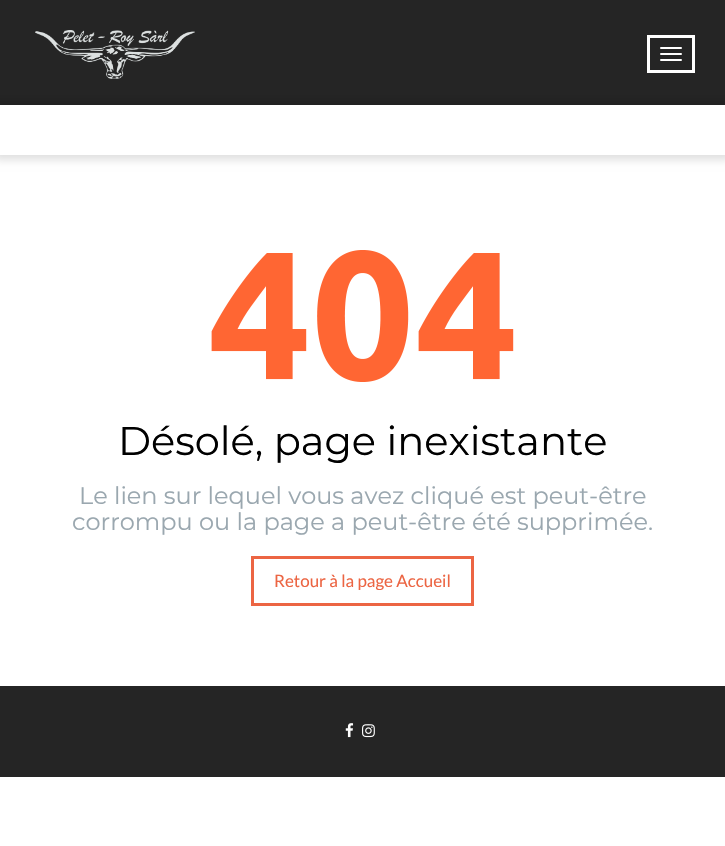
void draw(SkCanvas* canvas) {
    SkPaint paint;
    paint.setAntiAlias(true);
    auto face = [&](const char* family, int weight, float size, bool italic = false) {
        SkFontStyle style(weight, SkFontStyle::kNormal_Width,
            italic ? SkFontStyle::kItalic_Slant : SkFontStyle::kUpright_Slant);
        SkFont result(fontMgr->matchFamilyStyle(family, style), size);
        result.setSubpixel(true);
        return result;
    };
    auto write = [&](const char* s, float x, float y, const SkFont& font, SkColor color) {
        SkPaint ink(SkColor4f::FromColor(color));
        ink.setAntiAlias(true);
        canvas->drawString(s, x, y, font, ink);
    };
    auto block = [&](float x, float y, float w, float h, SkColor color) {
        SkPaint ink(SkColor4f::FromColor(color));
        ink.setAntiAlias(true);
        canvas->drawRect(SkRect::MakeXYWH(x, y, w, h), ink);
    };
    auto card = [&](float x, float y, float w, float h, float radius, SkColor color) {
        SkPaint ink(SkColor4f::FromColor(color));
        ink.setAntiAlias(true);
        canvas->drawRoundRect(SkRect::MakeXYWH(x, y, w, h), radius, radius, ink);
    };
    auto paste = [&](const char* path, float x, float y, float w, float h) {
        auto image = SkImages::DeferredFromEncodedData(SkData::MakeFromFileName(path));
        canvas->drawImageRect(image, SkRect::MakeXYWH(x, y, w, h), SkSamplingOptions());
    };
    canvas->clear(SK_ColorWHITE);
    block(0, 0, 725, 105, SkColorSetRGB(37, 37, 37));
    paste("pic1.png", 35, 30, 160, 49);
    paint.setStyle(SkPaint::kStroke_Style);
    paint.setStrokeWidth(3);
    paint.setColor(SK_ColorWHITE);
    canvas->drawRect(SkRect::MakeXYWH(648.5f, 36.5f, 45, 35), paint);
    card(660, 47, 22, 2, 1, SK_ColorWHITE);
    card(660, 53, 22, 2, 1, SK_ColorWHITE);
    card(660, 59, 22, 2, 1, SK_ColorWHITE);
    paint.setStyle(SkPaint::kFill_Style);
    paint.setColor(SkColorSetARGB(31, 0, 0, 0));
    paint.setMaskFilter(SkMaskFilter::MakeBlur(kNormal_SkBlurStyle, 4));
    canvas->drawRect(SkRect::MakeXYWH(-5, 100, 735, 60), paint);
    paint.setMaskFilter(nullptr);
    block(0, 105, 725, 50, SK_ColorWHITE);
    paste("pic2.png", 211, 250, 303, 132);
    auto kFont1 = face("Montserrat", 100, 40);
    write("Désolé, page inexistante", 118, 455, kFont1, SK_ColorBLACK);
    auto kFont2 = face("Montserrat", 100, 24);
    write("Le lien sur lequel vous avez cliqué est peut-être", 79, 504, kFont2, SkColorSetRGB(154, 167, 175));
    write("corrompu ou la page a peut-être été supprimée.", 72, 530, kFont2, SkColorSetRGB(154, 167, 175));
    paint.setStyle(SkPaint::kStroke_Style);
    paint.setColor(SkColorSetRGB(236, 101, 67));
    canvas->drawRect(SkRect::MakeXYWH(252.5f, 557.5f, 220, 47), paint);
    auto kFont3 = face("Lato", 400, 17);
    write("Retour à la page Accueil", 274, 587, kFont3, SkColorSetRGB(236, 101, 67));
    block(0, 686, 725, 91, SkColorSetRGB(37, 37, 37));
    paste("pic3.png", 345, 723, 9, 15);
    paste("pic4.png", 362, 724, 13, 14);
}
